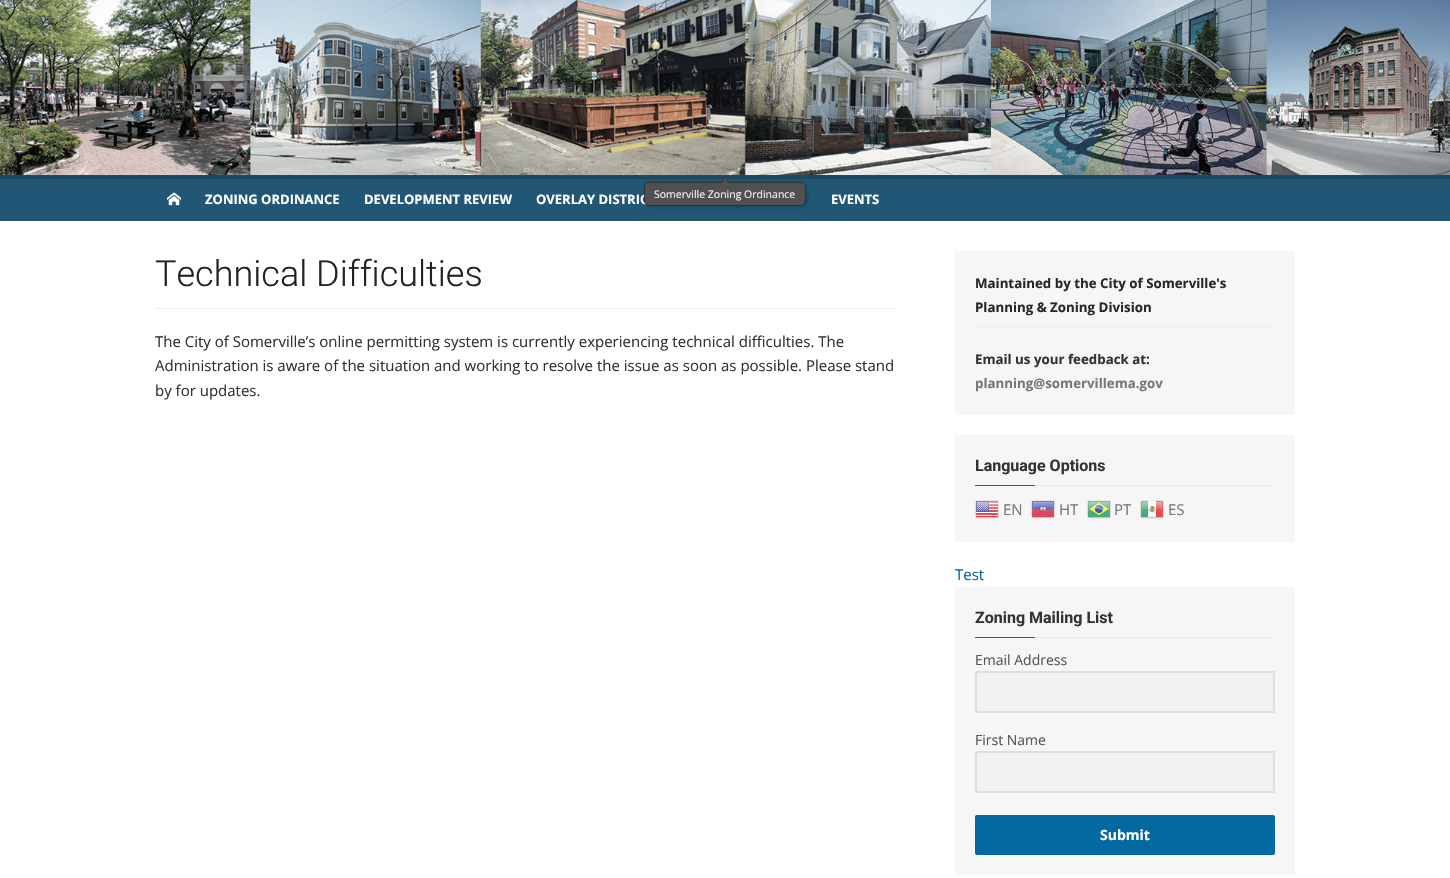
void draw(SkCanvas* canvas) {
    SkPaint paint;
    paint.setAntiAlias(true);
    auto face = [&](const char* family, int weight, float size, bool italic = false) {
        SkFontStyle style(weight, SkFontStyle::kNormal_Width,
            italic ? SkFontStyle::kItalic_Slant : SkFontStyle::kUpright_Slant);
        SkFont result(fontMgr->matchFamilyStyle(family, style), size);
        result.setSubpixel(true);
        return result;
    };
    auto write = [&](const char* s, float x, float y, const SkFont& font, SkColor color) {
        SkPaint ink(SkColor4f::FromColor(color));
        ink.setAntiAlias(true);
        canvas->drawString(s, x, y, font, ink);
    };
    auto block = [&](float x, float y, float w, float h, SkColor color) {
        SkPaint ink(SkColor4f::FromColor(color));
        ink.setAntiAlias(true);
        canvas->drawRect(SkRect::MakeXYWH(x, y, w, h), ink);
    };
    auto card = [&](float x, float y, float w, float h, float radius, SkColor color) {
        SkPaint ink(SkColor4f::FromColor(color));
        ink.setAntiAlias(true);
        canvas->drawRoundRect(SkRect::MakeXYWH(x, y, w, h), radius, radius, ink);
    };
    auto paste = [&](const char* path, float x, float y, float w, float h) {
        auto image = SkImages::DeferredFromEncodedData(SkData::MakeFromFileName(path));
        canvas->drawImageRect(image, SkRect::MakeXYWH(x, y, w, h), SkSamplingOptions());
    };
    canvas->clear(SK_ColorWHITE);
    block(0, 179, 1450, 42, SkColorSetRGB(33, 87, 117));
    block(0, 175, 1450, 4, SkColorSetRGB(28, 74, 99));
    paint.setColor(SkColorSetARGB(38, 0, 0, 0));
    paint.setMaskFilter(SkMaskFilter::MakeBlur(kNormal_SkBlurStyle, 1.5f));
    canvas->drawRoundRect(SkRect::MakeXYWH(644, 182, 164, 26), 6, 6, paint);
    paint.setMaskFilter(nullptr);
    auto kFont1 = face("Open Sans", 700, 13);
    write("OVERLAY DISTRIC", 536, 204, kFont1, SK_ColorWHITE);
    paint.setColor(SkColorSetRGB(80, 80, 80));
    canvas->drawRoundRect(SkRect::MakeXYWH(644.5f, 182.5f, 161, 23), 4.5f, 4.5f, paint);
    paint.setStyle(SkPaint::kStroke_Style);
    paint.setStrokeWidth(1);
    paint.setColor(SkColorSetRGB(48, 48, 48));
    canvas->drawRoundRect(SkRect::MakeXYWH(644.5f, 182.5f, 161, 23), 4.5f, 4.5f, paint);
    paste("pic1.png", 721, 175, 8, 8);
    auto kFont2 = face("Open Sans", 400, 10.5f);
    write("Somerville Zoning Ordinance", 654, 198, kFont2, SkColorSetRGB(243, 243, 243));
    paste("pic2.png", 0, 0, 1450, 175);
    paste("pic3.png", 167, 192, 14, 14);
    write("ZONING ORDINANCE", 205, 204, kFont1, SK_ColorWHITE);
    write("DEVELOPMENT REVIEW", 364, 204, kFont1, SK_ColorWHITE);
    write("EVENTS", 831, 204, kFont1, SK_ColorWHITE);
    block(155, 308, 740, 1, SkColorSetRGB(238, 238, 238));
    auto kFont3 = face("Roboto", 300, 36);
    write("Technical Difficulties", 155, 286, kFont3, SkColorSetRGB(34, 34, 34));
    auto kFont4 = face("Open Sans", 400, 15);
    write("The City of Somerville’s online permitting system is currently experiencing technical difficulties. The", 155, 347, kFont4, SkColorSetRGB(51, 51, 51));
    write("Administration is aware of the situation and working to resolve the issue as soon as possible. Please stand", 155, 371, kFont4, SkColorSetRGB(51, 51, 51));
    write("by for updates.", 155, 396, kFont4, SkColorSetRGB(51, 51, 51));
    card(955, 251, 340, 164, 2, SkColorSetRGB(246, 246, 246));
    auto kFont5 = face("Open Sans", 700, 13.3f);
    write("Maintained by the City of Somerville's", 975, 288, kFont5, SkColorSetRGB(40, 40, 40));
    write("Planning & Zoning Division", 975, 312, kFont5, SkColorSetRGB(40, 40, 40));
    block(975, 326, 300, 1, SkColorSetRGB(238, 238, 238));
    write("Email us your feedback at:", 975, 364, kFont5, SkColorSetRGB(51, 51, 51));
    write("planning@somervillema.gov", 975, 388, kFont5, SkColorSetRGB(119, 119, 119));
    card(955, 435, 340, 107, 2, SkColorSetRGB(246, 246, 246));
    block(1035, 485, 240, 1, SkColorSetRGB(232, 232, 232));
    auto kFont6 = face("Roboto", 700, 16);
    write("Language Options", 975, 471, kFont6, SkColorSetRGB(51, 51, 51));
    block(975, 485, 60, 1, SkColorSetRGB(4, 105, 161));
    paste("pic4.png", 975, 500, 24, 19);
    write("EN", 1003, 515, kFont4, SkColorSetRGB(119, 119, 119));
    paste("pic5.png", 1031, 500, 24, 19);
    write("HT", 1059, 515, kFont4, SkColorSetRGB(119, 119, 119));
    paste("pic6.png", 1087, 500, 24, 19);
    write("PT", 1114, 515, kFont4, SkColorSetRGB(119, 119, 119));
    paste("pic7.png", 1140, 500, 24, 19);
    write("ES", 1168, 515, kFont4, SkColorSetRGB(119, 119, 119));
    write("Test", 955, 580, kFont4, SkColorSetRGB(4, 105, 161));
    card(955, 587, 340, 288, 2, SkColorSetRGB(246, 246, 246));
    block(1035, 637, 240, 1, SkColorSetRGB(232, 232, 232));
    write("Zoning Mailing List", 975, 623, kFont6, SkColorSetRGB(51, 51, 51));
    block(975, 637, 60, 1, SkColorSetRGB(4, 105, 161));
    auto kFont7 = face("Open Sans", 400, 14);
    write("Email Address", 975, 665, kFont7, SkColorSetRGB(85, 85, 85));
    paint.setStyle(SkPaint::kFill_Style);
    paint.setColor(SkColorSetRGB(241, 241, 241));
    canvas->drawRect(SkRect::MakeXYWH(976, 672, 298, 40), paint);
    paint.setStyle(SkPaint::kStroke_Style);
    paint.setStrokeWidth(2);
    paint.setColor(SkColorSetRGB(222, 222, 222));
    canvas->drawRect(SkRect::MakeXYWH(976, 672, 298, 40), paint);
    write("First Name", 975, 745, kFont7, SkColorSetRGB(85, 85, 85));
    paint.setStyle(SkPaint::kFill_Style);
    paint.setColor(SkColorSetRGB(241, 241, 241));
    canvas->drawRect(SkRect::MakeXYWH(976, 752, 298, 40), paint);
    paint.setStyle(SkPaint::kStroke_Style);
    paint.setColor(SkColorSetRGB(222, 222, 222));
    canvas->drawRect(SkRect::MakeXYWH(976, 752, 298, 40), paint);
    card(975, 815, 300, 40, 2, SkColorSetRGB(4, 105, 161));
    auto kFont8 = face("Open Sans", 700, 14);
    write("Submit", 1100, 840, kFont8, SK_ColorWHITE);
}
